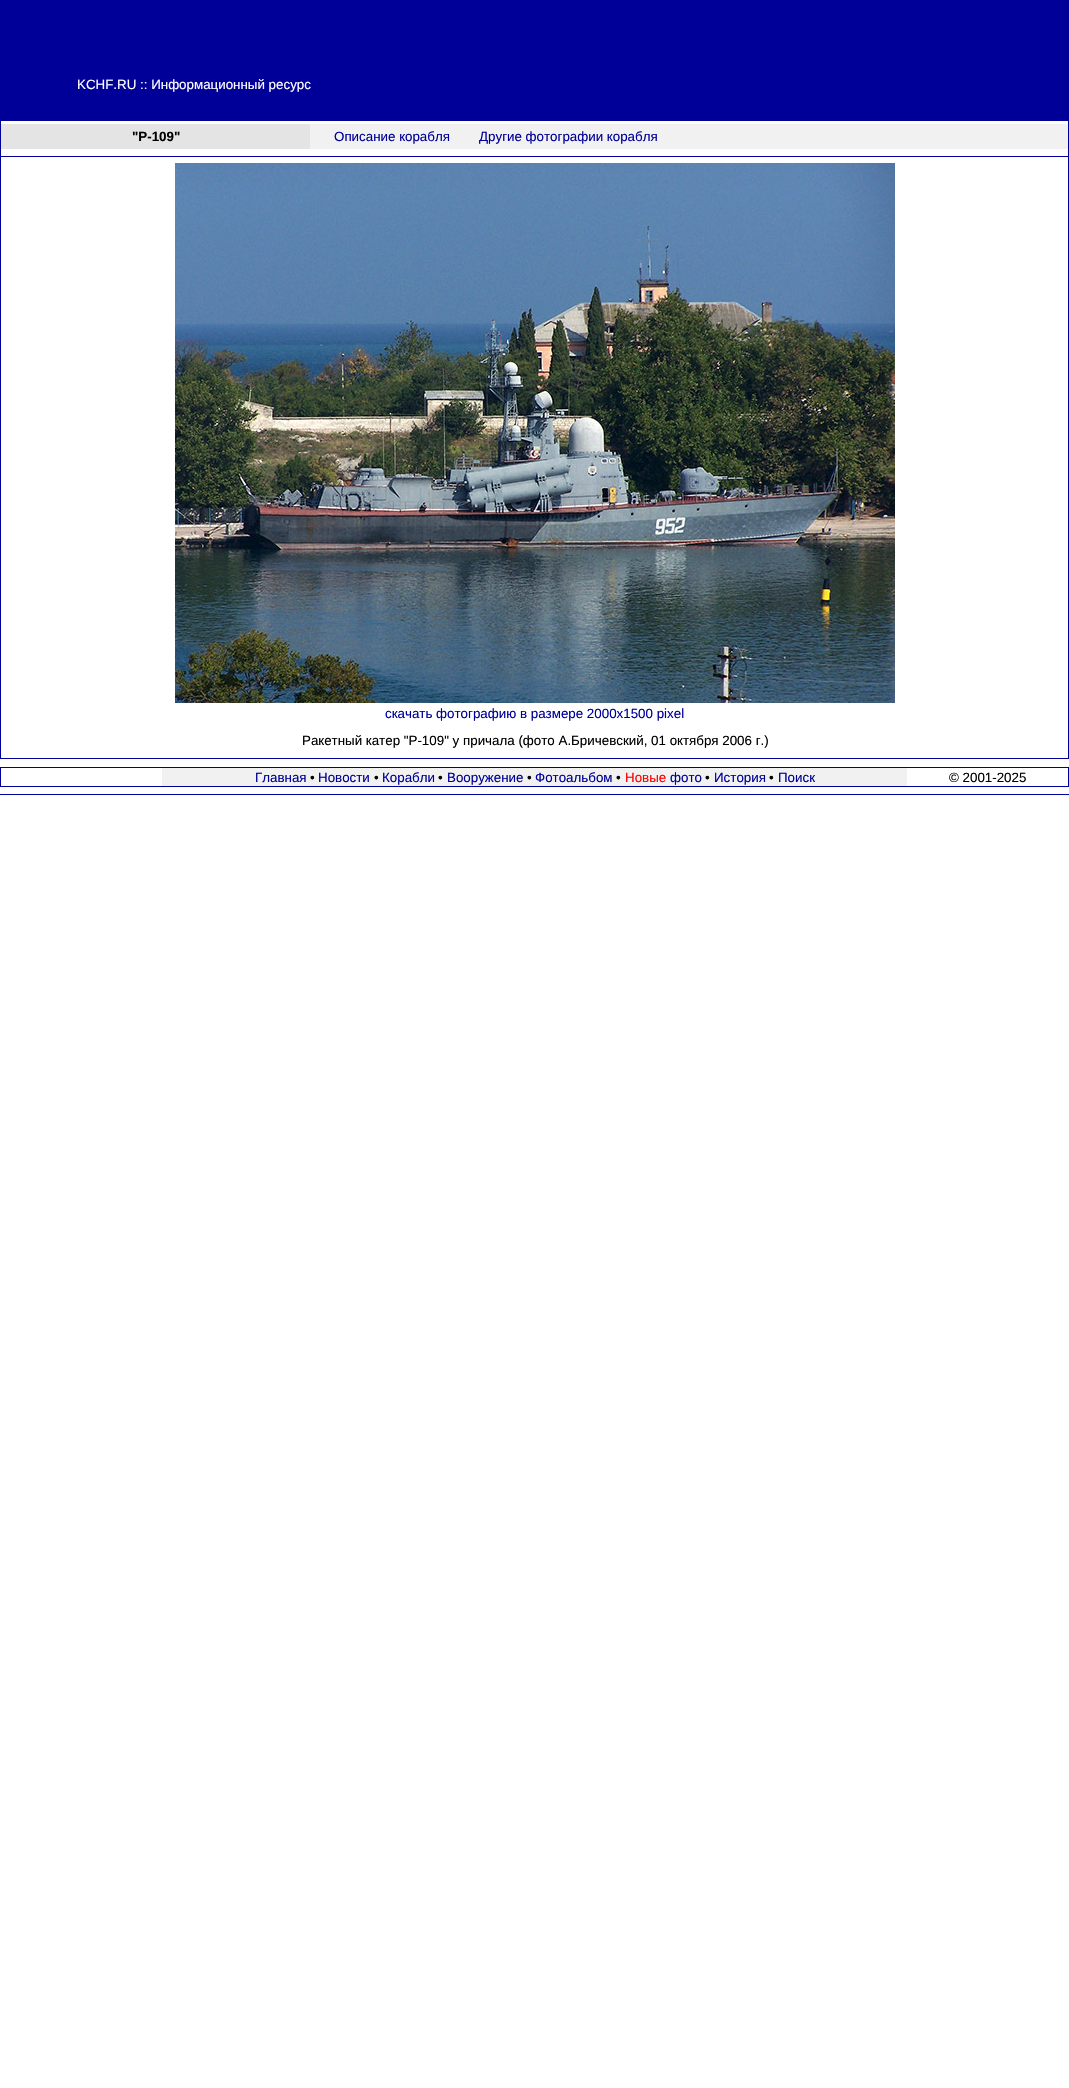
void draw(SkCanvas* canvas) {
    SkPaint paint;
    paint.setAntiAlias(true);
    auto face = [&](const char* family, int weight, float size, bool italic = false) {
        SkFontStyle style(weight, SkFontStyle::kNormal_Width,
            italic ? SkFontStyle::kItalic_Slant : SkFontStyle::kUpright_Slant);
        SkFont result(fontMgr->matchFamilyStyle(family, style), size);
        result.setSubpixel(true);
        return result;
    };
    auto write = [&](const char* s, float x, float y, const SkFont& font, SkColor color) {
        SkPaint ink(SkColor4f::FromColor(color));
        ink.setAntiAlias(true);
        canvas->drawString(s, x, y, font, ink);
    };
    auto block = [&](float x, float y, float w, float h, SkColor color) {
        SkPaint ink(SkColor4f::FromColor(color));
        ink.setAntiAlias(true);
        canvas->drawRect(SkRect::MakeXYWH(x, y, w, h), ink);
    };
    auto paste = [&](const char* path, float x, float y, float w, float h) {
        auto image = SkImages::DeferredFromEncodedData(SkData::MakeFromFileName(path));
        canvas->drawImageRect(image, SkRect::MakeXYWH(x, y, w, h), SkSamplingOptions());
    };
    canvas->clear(SK_ColorWHITE);
    block(0, 0, 1069, 759, SkColorSetRGB(0, 0, 153));
    block(1, 121, 1067, 637, SK_ColorWHITE);
    auto kFont1 = face("Liberation Sans", 400, 13.35f);
    write("KCHF.RU :: Информационный ресурс", 77, 89, kFont1, SK_ColorWHITE);
    block(1, 124, 309, 25, SkColorSetRGB(228, 228, 228));
    auto kFont2 = face("Liberation Sans", 700, 13.35f);
    write("\"Р-109\"", 132, 141, kFont2, SK_ColorBLACK);
    block(310, 124, 758, 25, SkColorSetRGB(241, 241, 241));
    write("Описание корабля", 334, 141, kFont1, SkColorSetRGB(0, 0, 153));
    write("Другие фотографии корабля", 479, 141, kFont1, SkColorSetRGB(0, 0, 153));
    block(1, 156, 1067, 1, SkColorSetRGB(0, 0, 153));
    paste("pic1.png", 175, 163, 720, 540);
    write("скачать фотографию в размере 2000х1500 pixel", 385, 718, kFont1, SkColorSetRGB(0, 0, 153));
    write("Ракетный катер \"Р-109\" у причала (фото А.Бричевский, 01 октября 2006 г.)", 302, 745, kFont1, SK_ColorBLACK);
    block(0, 767, 1069, 20, SkColorSetRGB(0, 0, 153));
    block(1, 768, 1067, 18, SK_ColorWHITE);
    block(162, 768, 745, 18, SkColorSetRGB(241, 241, 241));
    write("Главная", 255, 782, kFont1, SkColorSetRGB(0, 0, 153));
    write("•", 310, 782, kFont1, SK_ColorBLACK);
    write("Новости", 318, 782, kFont1, SkColorSetRGB(0, 0, 153));
    write("•", 374, 782, kFont1, SK_ColorBLACK);
    write("Корабли", 382, 782, kFont1, SkColorSetRGB(0, 0, 153));
    write("•", 438, 782, kFont1, SK_ColorBLACK);
    write("Вооружение", 447, 782, kFont1, SkColorSetRGB(0, 0, 153));
    write("•", 527, 782, kFont1, SK_ColorBLACK);
    write("Фотоальбом", 535, 782, kFont1, SkColorSetRGB(0, 0, 153));
    write("•", 616, 782, kFont1, SK_ColorBLACK);
    write("Новые", 625, 782, kFont1, SkColorSetRGB(255, 0, 0));
    write("фото", 670, 782, kFont1, SkColorSetRGB(0, 0, 153));
    write("•", 705, 782, kFont1, SK_ColorBLACK);
    write("История", 714, 782, kFont1, SkColorSetRGB(0, 0, 153));
    write("•", 769, 782, kFont1, SK_ColorBLACK);
    write("Поиск", 778, 782, kFont1, SkColorSetRGB(0, 0, 153));
    write("© 2001-2025", 949, 782, kFont1, SK_ColorBLACK);
    block(0, 794, 1069, 1, SkColorSetRGB(0, 0, 153));
}
